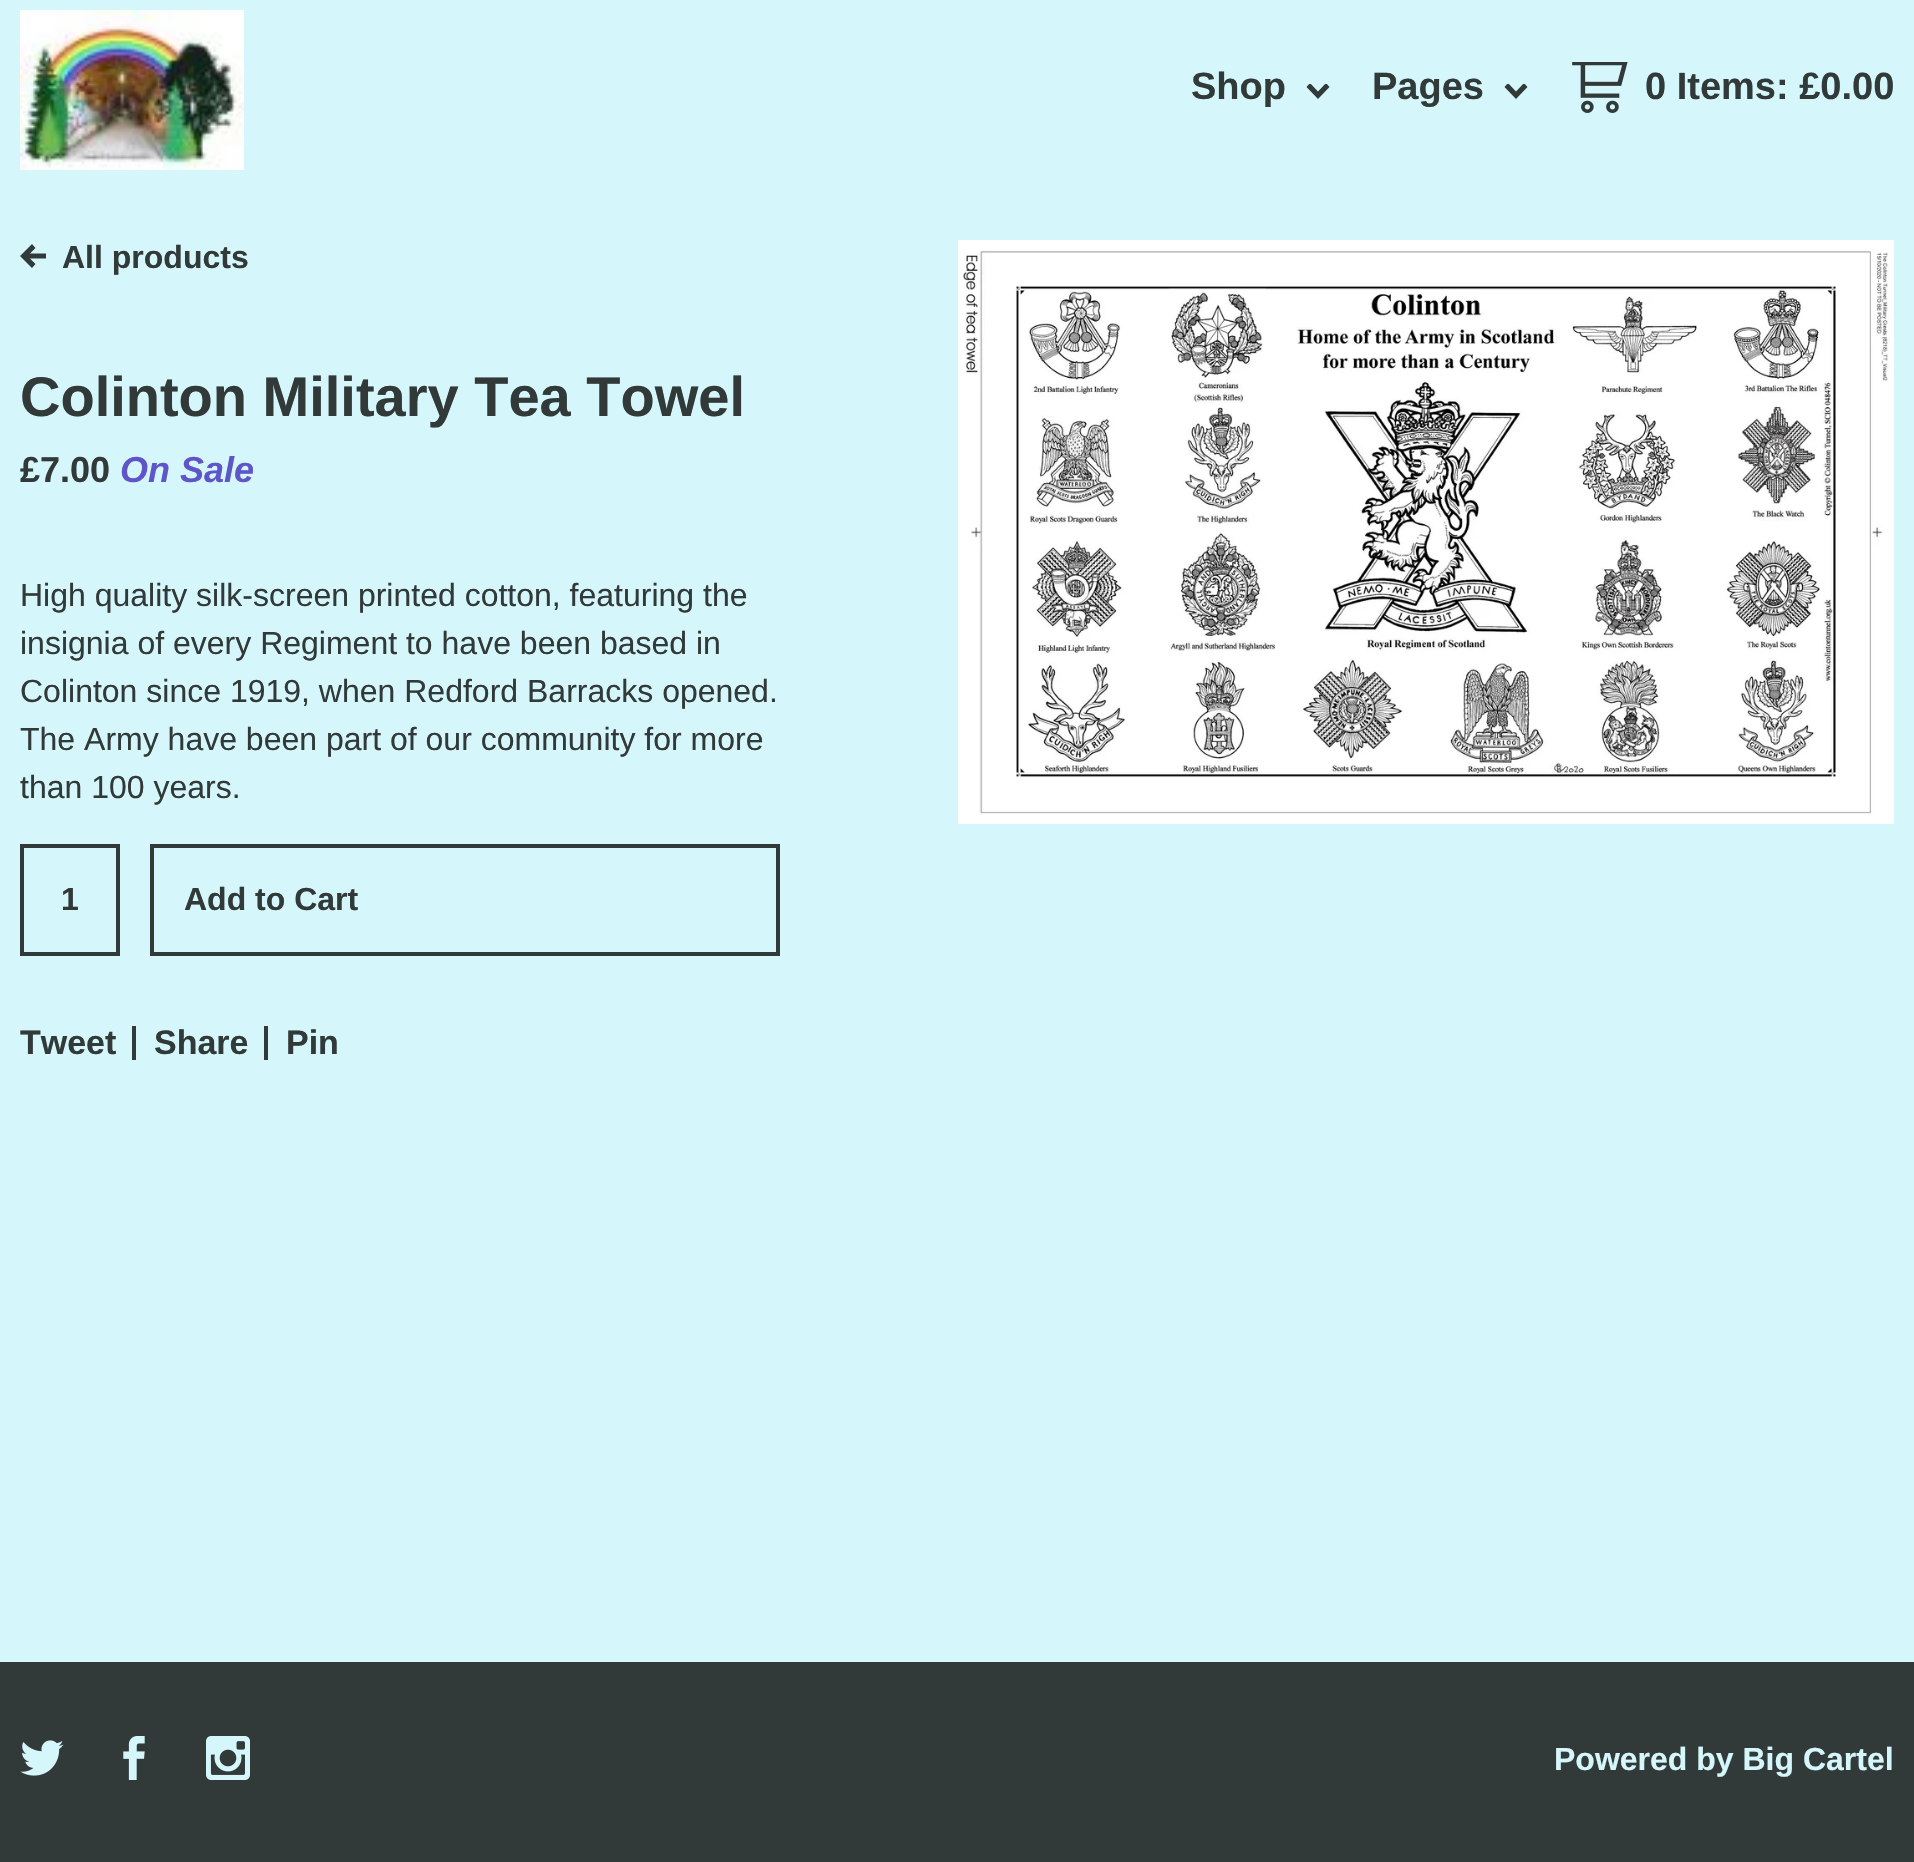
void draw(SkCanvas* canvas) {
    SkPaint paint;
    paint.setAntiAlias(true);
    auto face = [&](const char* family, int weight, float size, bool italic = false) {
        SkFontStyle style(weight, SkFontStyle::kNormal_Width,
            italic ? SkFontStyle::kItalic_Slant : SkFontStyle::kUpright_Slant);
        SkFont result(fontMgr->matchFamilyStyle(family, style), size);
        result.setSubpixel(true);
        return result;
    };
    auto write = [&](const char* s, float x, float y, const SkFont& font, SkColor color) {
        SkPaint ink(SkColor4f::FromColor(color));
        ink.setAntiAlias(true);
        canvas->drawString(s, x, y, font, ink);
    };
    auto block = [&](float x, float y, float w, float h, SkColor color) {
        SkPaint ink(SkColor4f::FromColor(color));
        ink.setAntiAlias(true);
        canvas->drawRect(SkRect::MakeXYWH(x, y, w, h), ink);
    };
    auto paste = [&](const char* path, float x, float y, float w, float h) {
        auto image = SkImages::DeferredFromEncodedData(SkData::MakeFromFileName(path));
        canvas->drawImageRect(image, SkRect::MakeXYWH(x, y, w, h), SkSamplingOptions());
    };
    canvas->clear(SkColorSetRGB(213, 247, 251));
    paste("pic1.png", 20, 10, 224, 160);
    auto kFont1 = face("Liberation Sans", 700, 38);
    write("Shop", 1191, 99, kFont1, SkColorSetRGB(50, 58, 57));
    canvas->save();
    canvas->clipRect(SkRect::MakeXYWH(1306, 84, 24, 16));
    paint.setColor(SkColorSetRGB(50, 58, 57));
    canvas->drawPath(SkPathBuilder().moveTo(1329.5f, 87).lineTo(1326, 83).lineTo(1318, 91.5f).lineTo(1310, 83).lineTo(1306.5f, 87).lineTo(1318, 99).close().detach(), paint);
    canvas->restore();
    write("Pages", 1372, 99, kFont1, SkColorSetRGB(50, 58, 57));
    canvas->save();
    canvas->clipRect(SkRect::MakeXYWH(1504, 84, 24, 16));
    canvas->drawPath(SkPathBuilder().moveTo(1527.5f, 87).lineTo(1524, 83).lineTo(1516, 91.5f).lineTo(1508, 83).lineTo(1504.5f, 87).lineTo(1516, 99).close().detach(), paint);
    canvas->restore();
    paste("pic2.png", 1572, 62, 56, 51);
    write("0 Items: £0.00", 1645, 99, kFont1, SkColorSetRGB(50, 58, 57));
    canvas->drawPath(SkPathBuilder().moveTo(32, 268).lineTo(35.5f, 264).lineTo(30, 258.5f).lineTo(46, 258.5f).lineTo(46, 253.5f).lineTo(30, 253.5f).lineTo(35.5f, 248).lineTo(32, 244).lineTo(20, 256).close().detach(), paint);
    auto kFont2 = face("Liberation Sans", 700, 32);
    write("All products", 62, 268, kFont2, SkColorSetRGB(50, 58, 57));
    auto kFont3 = face("Liberation Sans", 700, 56);
    write("Colinton Military Tea Towel", 20, 416, kFont3, SkColorSetRGB(50, 58, 57));
    auto kFont4 = face("Liberation Sans", 700, 36);
    write("£7.00", 20, 482, kFont4, SkColorSetRGB(50, 58, 57));
    auto kFont5 = face("Liberation Sans", 700, 36, true);
    write("On Sale", 120, 482, kFont5, SkColorSetRGB(95, 85, 201));
    auto kFont6 = face("Liberation Sans", 400, 32);
    write("High quality silk-screen printed cotton, featuring the", 20, 606, kFont6, SkColorSetRGB(50, 58, 57));
    write("insignia of every Regiment to have been based in", 20, 654, kFont6, SkColorSetRGB(50, 58, 57));
    write("Colinton since 1919, when Redford Barracks opened.", 20, 702, kFont6, SkColorSetRGB(50, 58, 57));
    write("The Army have been part of our community for more", 20, 750, kFont6, SkColorSetRGB(50, 58, 57));
    write("than 100 years.", 20, 798, kFont6, SkColorSetRGB(50, 58, 57));
    paint.setStyle(SkPaint::kStroke_Style);
    paint.setStrokeWidth(4);
    canvas->drawRect(SkRect::MakeXYWH(22, 846, 96, 108), paint);
    write("1", 61, 910, kFont2, SkColorSetRGB(50, 58, 57));
    canvas->drawRect(SkRect::MakeXYWH(152, 846, 626, 108), paint);
    write("Add to Cart", 184, 910, kFont2, SkColorSetRGB(50, 58, 57));
    block(132, 1026, 4, 34, SkColorSetRGB(50, 58, 57));
    auto kFont7 = face("Liberation Sans", 700, 34);
    write("Tweet", 20, 1054, kFont7, SkColorSetRGB(50, 58, 57));
    block(264, 1026, 4, 34, SkColorSetRGB(50, 58, 57));
    write("Share", 154, 1054, kFont7, SkColorSetRGB(50, 58, 57));
    write("Pin", 286, 1054, kFont7, SkColorSetRGB(50, 58, 57));
    paste("pic3.png", 958, 240, 936, 584);
    block(0, 1662, 1914, 200, SkColorSetRGB(50, 58, 57));
    paste("pic4.png", 20, 1740, 44, 36);
    paste("pic5.png", 123, 1736, 22, 44);
    paste("pic6.png", 206, 1736, 44, 44);
    write("Powered by Big Cartel", 1554, 1770, kFont2, SkColorSetRGB(213, 247, 251));
}
